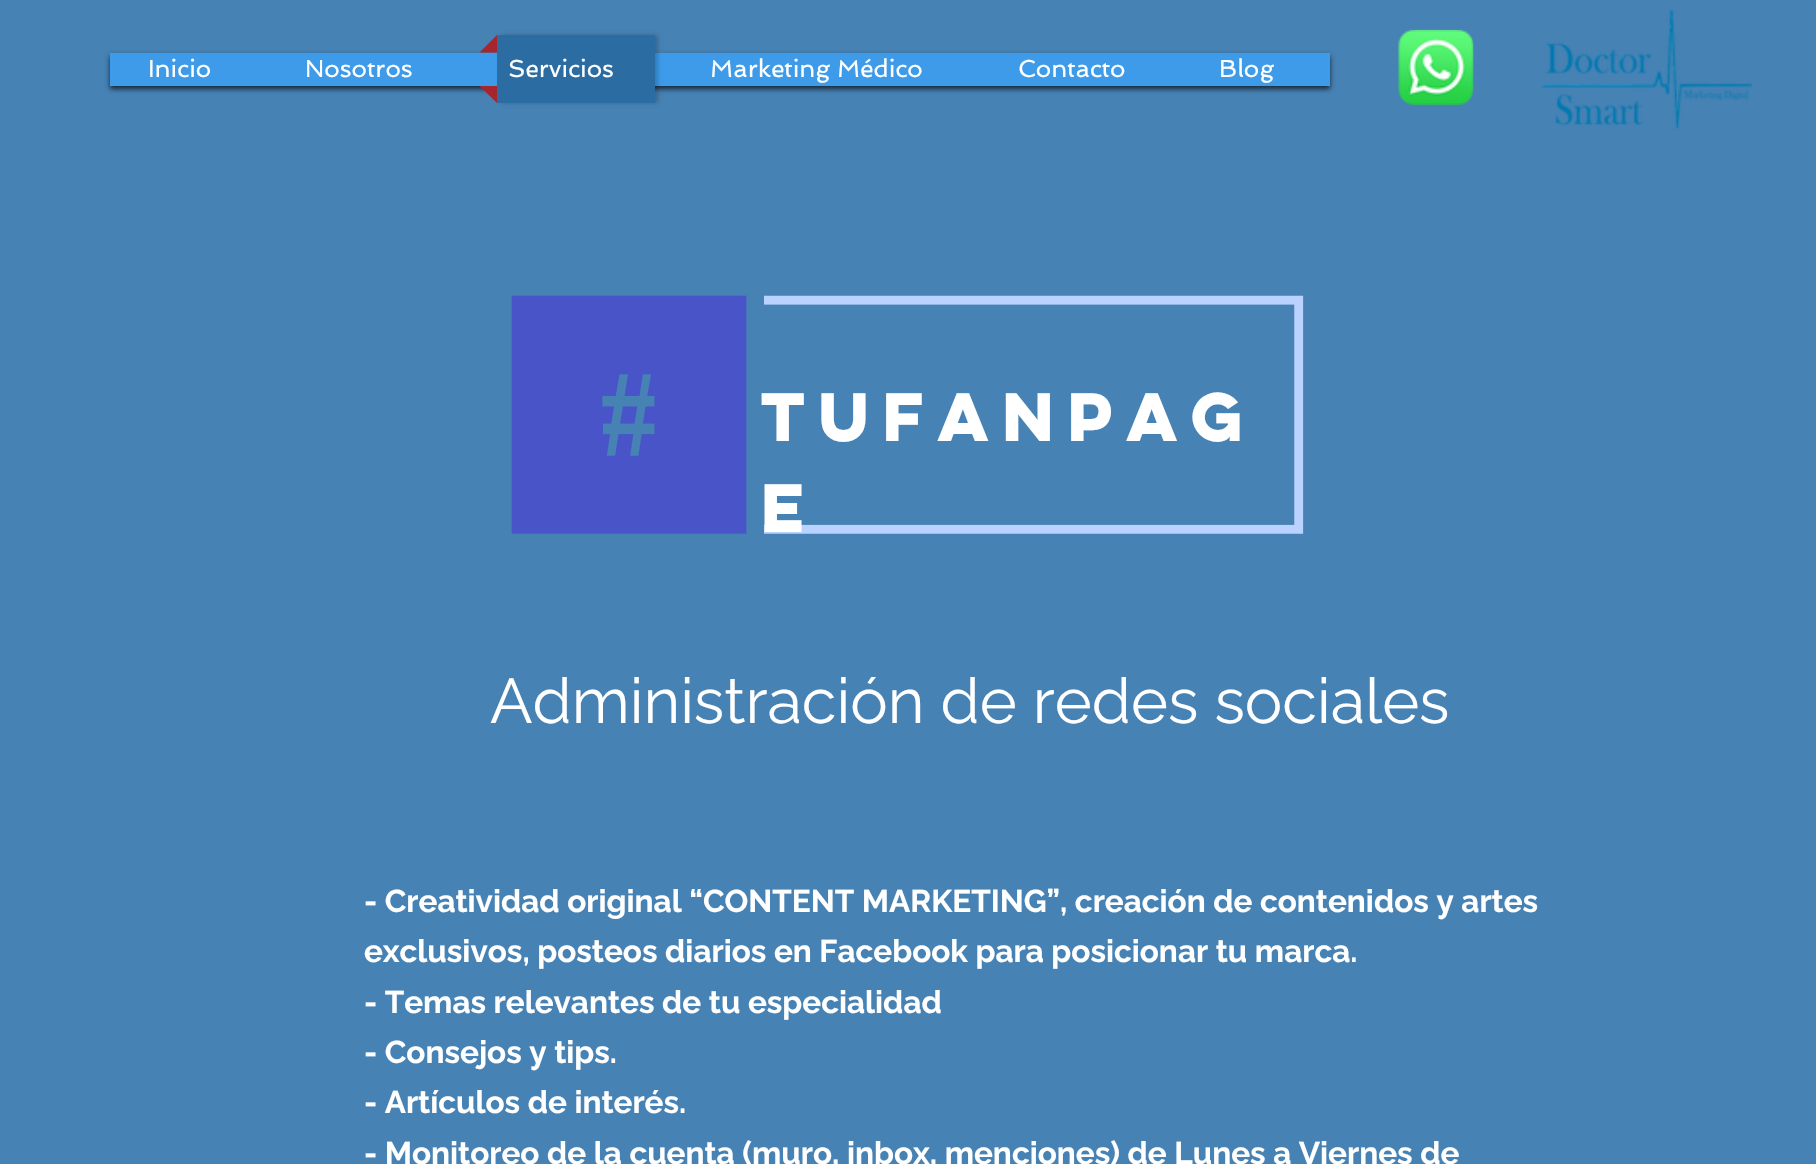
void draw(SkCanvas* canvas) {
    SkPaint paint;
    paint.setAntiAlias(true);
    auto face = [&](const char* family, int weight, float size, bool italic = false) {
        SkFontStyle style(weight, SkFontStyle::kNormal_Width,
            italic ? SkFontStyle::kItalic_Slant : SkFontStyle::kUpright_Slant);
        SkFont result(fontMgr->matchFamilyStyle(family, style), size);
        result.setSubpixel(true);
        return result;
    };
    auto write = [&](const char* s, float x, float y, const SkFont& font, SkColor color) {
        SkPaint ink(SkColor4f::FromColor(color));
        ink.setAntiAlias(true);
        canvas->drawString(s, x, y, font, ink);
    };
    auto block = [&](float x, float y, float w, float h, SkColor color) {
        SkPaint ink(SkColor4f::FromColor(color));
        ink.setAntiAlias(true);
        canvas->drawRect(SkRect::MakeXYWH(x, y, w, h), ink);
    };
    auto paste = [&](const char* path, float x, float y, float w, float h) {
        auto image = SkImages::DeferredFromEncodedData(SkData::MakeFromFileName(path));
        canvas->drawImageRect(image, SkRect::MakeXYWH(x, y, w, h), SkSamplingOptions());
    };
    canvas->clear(SkColorSetRGB(70, 130, 180));
    paint.setColor(SkColorSetARGB(179, 0, 0, 0));
    paint.setMaskFilter(SkMaskFilter::MakeBlur(kNormal_SkBlurStyle, 2.5f));
    canvas->drawRect(SkRect::MakeXYWH(110, 56, 1220, 33), paint);
    paint.setMaskFilter(nullptr);
    block(110, 53, 1220, 33, SkColorSetRGB(61, 155, 233));
    auto kFont1 = face("Spinnaker", 400, 24.5f);
    write("Inicio", 148, 77, kFont1, SK_ColorWHITE);
    write("Nosotros", 305, 77, kFont1, SK_ColorWHITE);
    paint.setColor(SkColorSetARGB(51, 0, 0, 0));
    paint.setMaskFilter(SkMaskFilter::MakeBlur(kNormal_SkBlurStyle, 2));
    canvas->drawRect(SkRect::MakeXYWH(501, 35, 157, 68), paint);
    paint.setMaskFilter(nullptr);
    paint.setColor(SkColorSetRGB(165, 38, 46));
    canvas->drawPath(SkPathBuilder().moveTo(497, 52.5f).lineTo(479.5f, 52.5f).lineTo(497, 35).close().detach(), paint);
    block(497, 35, 158, 68, SkColorSetRGB(43, 108, 163));
    canvas->drawPath(SkPathBuilder().moveTo(479.5f, 86).lineTo(497, 86).lineTo(497, 103).close().detach(), paint);
    write("Servicios", 508, 77, kFont1, SK_ColorWHITE);
    write("Marketing Médico", 710, 77, kFont1, SK_ColorWHITE);
    write("Contacto", 1018, 77, kFont1, SK_ColorWHITE);
    write("Blog", 1219, 77, kFont1, SK_ColorWHITE);
    paste("pic1.png", 1398, 29, 76, 76);
    paste("pic2.png", 1541, 9, 212, 120);
    paste("pic3.png", 511, 295, 793, 239);
    auto kFont2 = face("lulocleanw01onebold", 700, 61.25f);
    write("Tufanpag", 761, 441, kFont2, SK_ColorWHITE);
    write("e", 761, 532, kFont2, SK_ColorWHITE);
    auto kFont3 = face("Raleway", 400, 63);
    write("Administración de redes sociales", 490, 723, kFont3, SK_ColorWHITE);
    auto kFont4 = face("Raleway", 700, 31.5f);
    write("- Creatividad original “CONTENT MARKETING”, creación de contenidos y artes", 364, 912, kFont4, SK_ColorWHITE);
    write("exclusivos, posteos diarios en Facebook para posicionar tu marca.", 364, 962, kFont4, SK_ColorWHITE);
    write("- Temas relevantes de tu especialidad", 364, 1013, kFont4, SK_ColorWHITE);
    write("- Consejos y tips.", 364, 1063, kFont4, SK_ColorWHITE);
    write("- Artículos de interés.", 364, 1113, kFont4, SK_ColorWHITE);
    write("- Monitoreo de la cuenta (muro, inbox, menciones) de Lunes a Viernes de", 364, 1164, kFont4, SK_ColorWHITE);
}
